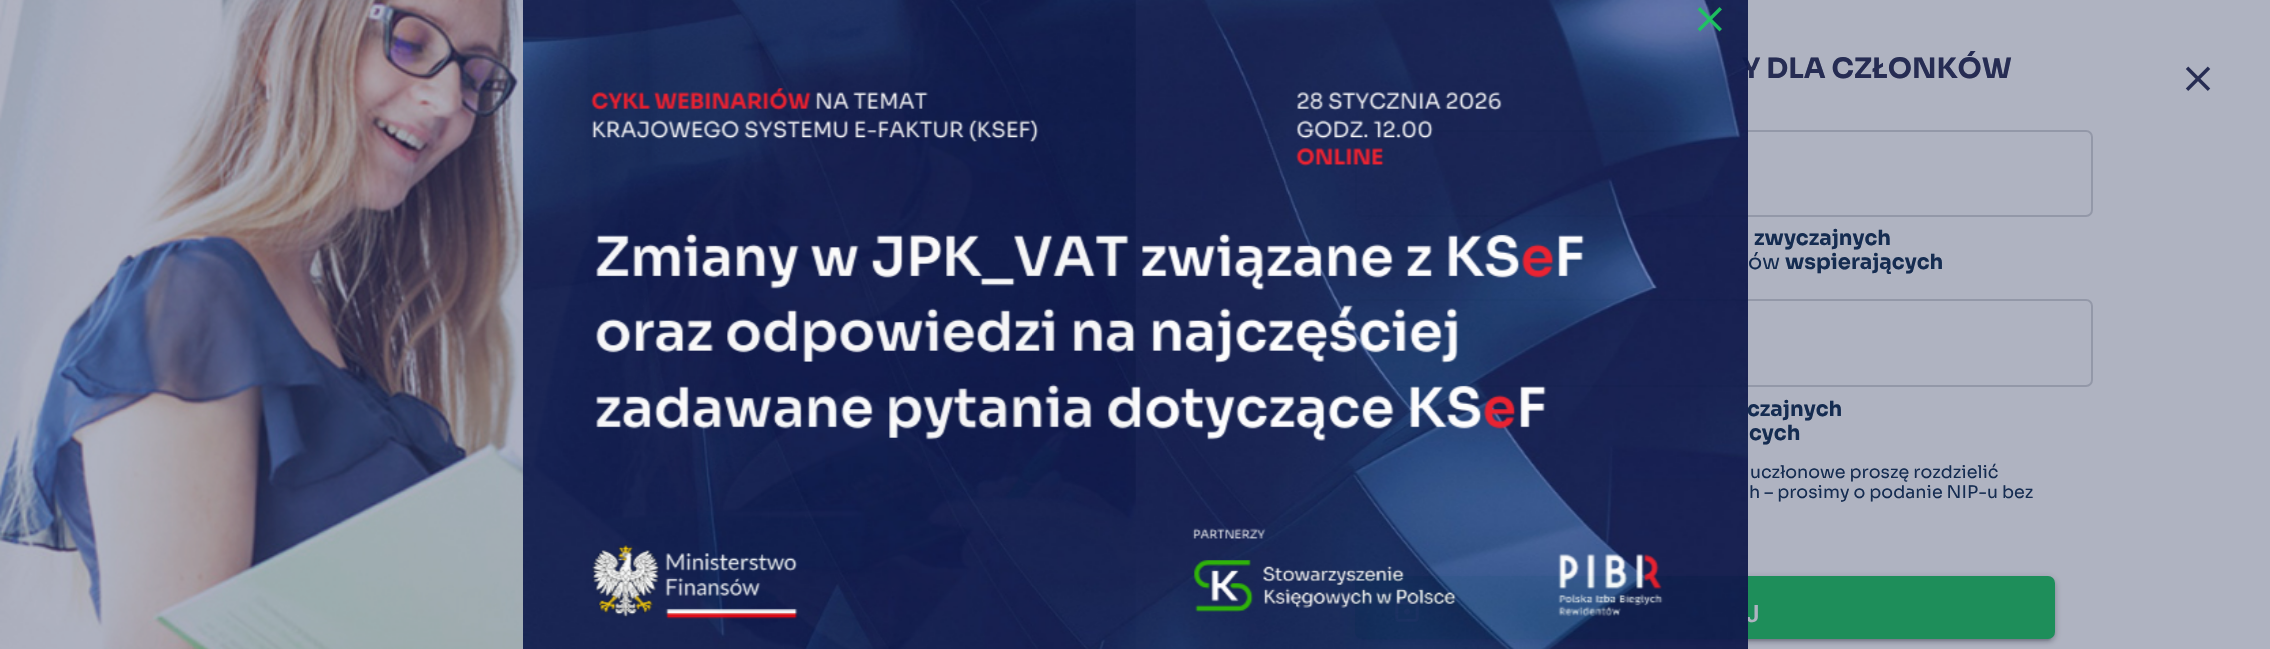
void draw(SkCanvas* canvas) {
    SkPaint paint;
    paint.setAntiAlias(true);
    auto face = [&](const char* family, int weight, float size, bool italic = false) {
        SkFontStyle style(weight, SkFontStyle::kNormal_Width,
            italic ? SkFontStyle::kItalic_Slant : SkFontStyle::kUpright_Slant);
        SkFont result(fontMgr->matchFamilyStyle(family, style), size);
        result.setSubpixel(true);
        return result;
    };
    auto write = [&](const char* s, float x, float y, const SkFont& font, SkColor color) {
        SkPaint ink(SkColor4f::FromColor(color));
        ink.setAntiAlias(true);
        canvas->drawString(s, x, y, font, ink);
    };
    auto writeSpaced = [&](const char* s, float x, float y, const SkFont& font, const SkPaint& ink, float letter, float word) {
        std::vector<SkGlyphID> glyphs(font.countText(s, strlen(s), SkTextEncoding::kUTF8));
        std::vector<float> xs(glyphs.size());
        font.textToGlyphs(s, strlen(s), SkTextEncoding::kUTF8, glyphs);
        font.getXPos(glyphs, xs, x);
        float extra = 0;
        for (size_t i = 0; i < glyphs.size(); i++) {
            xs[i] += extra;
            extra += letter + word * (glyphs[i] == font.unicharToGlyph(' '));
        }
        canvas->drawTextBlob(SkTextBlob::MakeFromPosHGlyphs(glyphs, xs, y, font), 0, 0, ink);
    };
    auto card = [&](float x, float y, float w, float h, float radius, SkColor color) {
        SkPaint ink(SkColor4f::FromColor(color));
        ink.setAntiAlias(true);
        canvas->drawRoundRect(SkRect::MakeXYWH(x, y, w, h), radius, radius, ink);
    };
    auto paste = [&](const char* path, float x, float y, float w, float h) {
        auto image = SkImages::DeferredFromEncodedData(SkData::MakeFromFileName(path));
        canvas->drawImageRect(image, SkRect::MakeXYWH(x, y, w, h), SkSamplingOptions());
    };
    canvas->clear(SkColorSetRGB(175, 179, 193));
    paste("pic3.png", 0, 0, 1136, 649);
    auto kFont1 = face("Sora", 700, 28);
    write("Y DLA CZŁONKÓW", 1742, 78, kFont1, SkColorSetRGB(38, 44, 83));
    paint.setStyle(SkPaint::kStroke_Style);
    paint.setStrokeWidth(2);
    paint.setColor(SkColorSetRGB(147, 152, 168));
    canvas->drawRoundRect(SkRect::MakeXYWH(1356, 131, 736, 85), 6, 6, paint);
    canvas->drawRoundRect(SkRect::MakeXYWH(1356, 300, 736, 86), 6, 6, paint);
    auto kFont2 = face("Sora", 700, 21);
    write("czajnych", 1747, 416, kFont2, SkColorSetRGB(21, 44, 81));
    paint.setStyle(SkPaint::kFill_Style);
    paint.setColor(SkColorSetARGB(51, 12, 15, 30));
    paint.setMaskFilter(SkMaskFilter::MakeBlur(kNormal_SkBlurStyle, 4.5f));
    canvas->drawRoundRect(SkRect::MakeXYWH(1355, 578, 700, 63), 7, 7, paint);
    paint.setMaskFilter(nullptr);
    paint.setColor(SkColorSetARGB(31, 12, 15, 30));
    paint.setMaskFilter(SkMaskFilter::MakeBlur(kNormal_SkBlurStyle, 1));
    canvas->drawRoundRect(SkRect::MakeXYWH(1358, 585, 693, 56), 4, 4, paint);
    paint.setMaskFilter(nullptr);
    paint.setColor(SkColorSetARGB(36, 12, 15, 30));
    paint.setMaskFilter(SkMaskFilter::MakeBlur(kNormal_SkBlurStyle, 2));
    canvas->drawRoundRect(SkRect::MakeXYWH(1355, 579, 700, 63), 7, 7, paint);
    paint.setMaskFilter(nullptr);
    card(1355, 576, 700, 63, 7, SkColorSetRGB(30, 142, 90));
    paste("pic4.png", 1395, 591, 24, 31);
    auto kFont3 = face("Roboto", 600, 24);
    paint.setColor(SkColorSetRGB(175, 179, 193));
    writeSpaced("J", 1746, 622, kFont3, paint, 1, 0);
    paste("pic1.png", 523, 0, 1225, 649);
    paste("pic2.png", 1697, 7, 25, 25);
    write("zwyczajnych", 1754, 245, kFont2, SkColorSetRGB(21, 44, 81));
    auto kFont4 = face("Sora", 400, 21);
    write("ów", 1748, 269, kFont4, SkColorSetRGB(21, 44, 81));
    write("wspierających", 1785, 269, kFont2, SkColorSetRGB(21, 44, 81));
    write("cych", 1749, 440, kFont2, SkColorSetRGB(21, 44, 81));
    auto kFont5 = face("Sora", 400, 17.5f);
    write("uczłonowe proszę rozdzielić", 1750, 478, kFont5, SkColorSetRGB(21, 44, 81));
    write("h – prosimy o podanie NIP-u bez", 1749, 498, kFont5, SkColorSetRGB(21, 44, 81));
    paste("pic5.png", 2185, 66, 26, 25);
}
